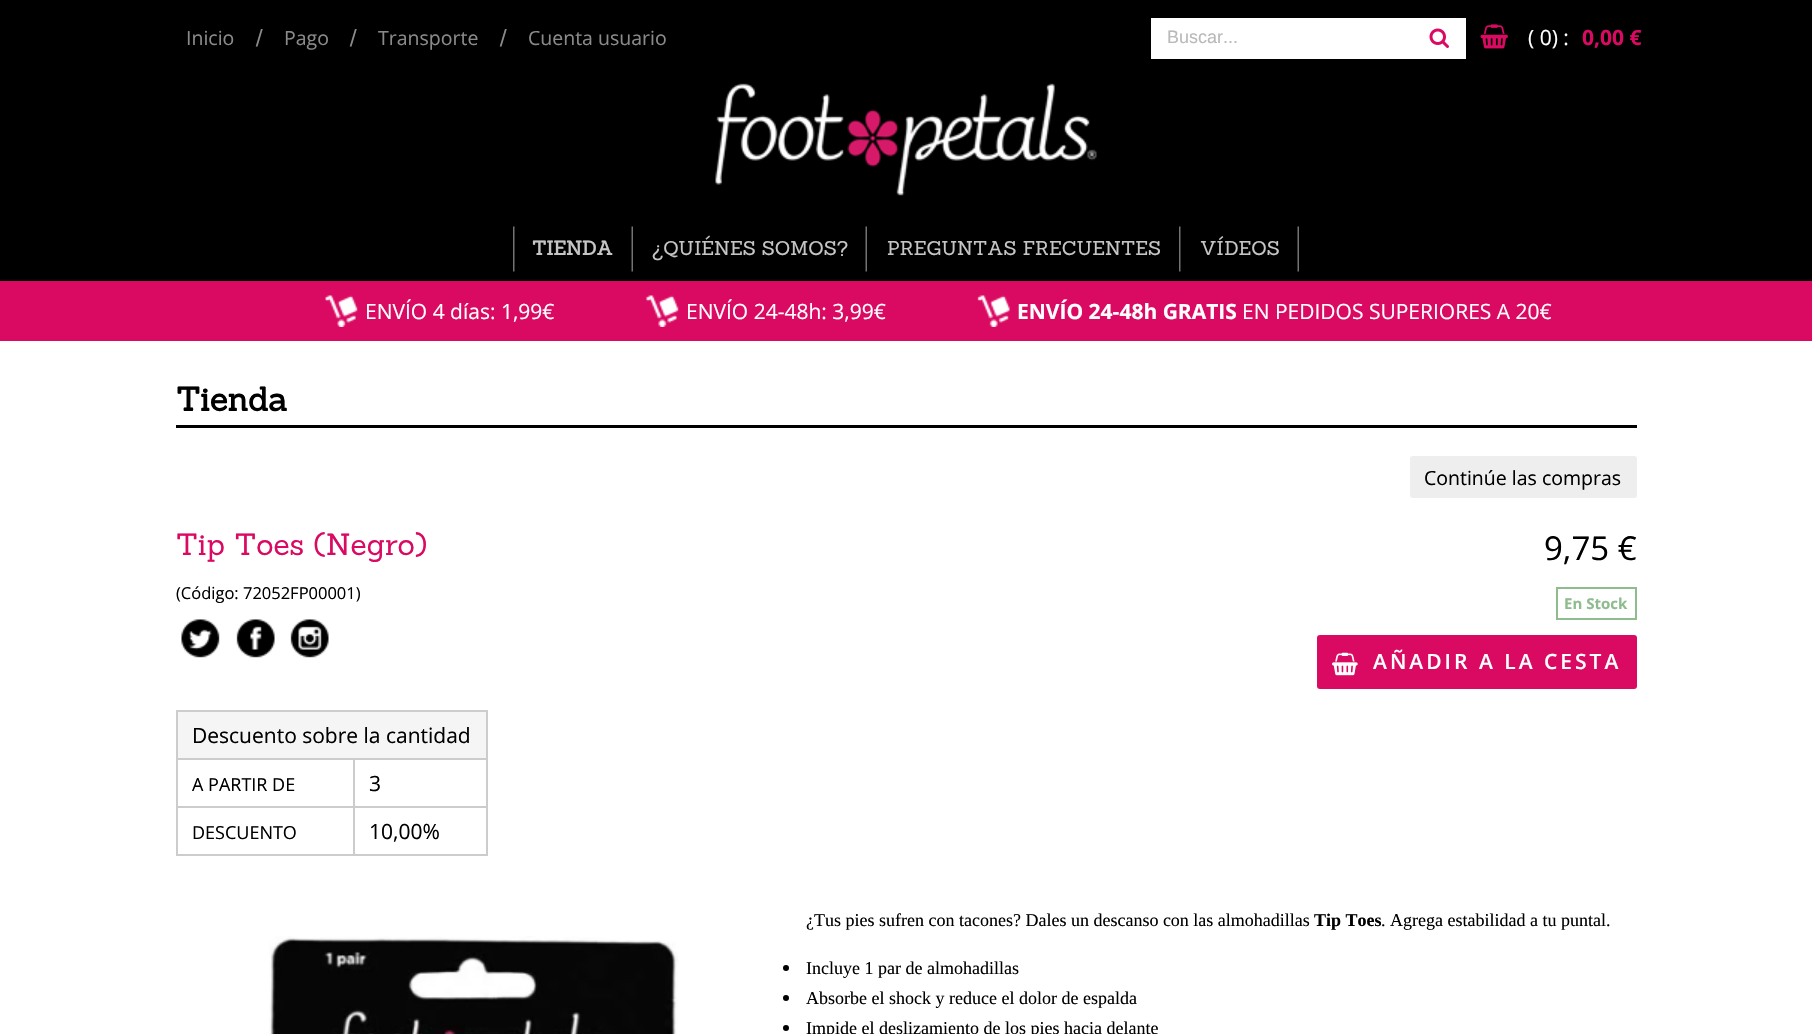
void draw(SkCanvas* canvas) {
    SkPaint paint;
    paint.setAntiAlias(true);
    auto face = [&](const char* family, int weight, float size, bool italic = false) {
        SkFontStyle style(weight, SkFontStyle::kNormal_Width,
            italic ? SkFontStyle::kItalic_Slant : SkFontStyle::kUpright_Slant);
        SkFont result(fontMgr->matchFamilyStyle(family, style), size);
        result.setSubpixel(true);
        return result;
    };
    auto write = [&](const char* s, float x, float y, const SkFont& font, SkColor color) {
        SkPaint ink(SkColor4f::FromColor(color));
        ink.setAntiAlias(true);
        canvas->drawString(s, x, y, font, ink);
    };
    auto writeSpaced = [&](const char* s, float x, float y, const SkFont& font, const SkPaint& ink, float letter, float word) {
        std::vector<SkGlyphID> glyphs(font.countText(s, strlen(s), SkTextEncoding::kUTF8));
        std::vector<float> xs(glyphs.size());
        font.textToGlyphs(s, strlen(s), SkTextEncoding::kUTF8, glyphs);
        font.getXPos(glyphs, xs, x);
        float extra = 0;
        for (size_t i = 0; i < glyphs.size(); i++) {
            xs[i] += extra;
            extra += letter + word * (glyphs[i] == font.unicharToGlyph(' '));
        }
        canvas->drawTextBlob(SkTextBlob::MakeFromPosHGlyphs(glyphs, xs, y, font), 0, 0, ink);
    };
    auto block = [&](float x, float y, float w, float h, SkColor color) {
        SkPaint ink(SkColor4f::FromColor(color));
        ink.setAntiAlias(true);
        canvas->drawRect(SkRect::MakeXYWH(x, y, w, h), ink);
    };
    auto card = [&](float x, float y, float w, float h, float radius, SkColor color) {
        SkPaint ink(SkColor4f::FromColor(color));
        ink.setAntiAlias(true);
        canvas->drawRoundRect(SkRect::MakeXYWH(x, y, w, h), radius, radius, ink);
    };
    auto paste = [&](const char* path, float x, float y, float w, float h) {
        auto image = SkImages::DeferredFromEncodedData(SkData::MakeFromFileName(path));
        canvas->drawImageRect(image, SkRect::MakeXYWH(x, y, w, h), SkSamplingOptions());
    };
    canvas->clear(SK_ColorWHITE);
    block(0, 0, 1812, 281, SK_ColorBLACK);
    auto kFont1 = face("Open Sans", 400, 19.5f);
    write("Inicio", 186, 45, kFont1, SkColorSetRGB(138, 138, 138));
    auto kFont2 = face("Sanchez", 400, 21);
    write("/", 255, 45, kFont2, SkColorSetRGB(138, 138, 138));
    write("Pago", 284, 45, kFont1, SkColorSetRGB(138, 138, 138));
    write("/", 349, 45, kFont2, SkColorSetRGB(138, 138, 138));
    write("Transporte", 378, 45, kFont1, SkColorSetRGB(138, 138, 138));
    write("/", 499, 45, kFont2, SkColorSetRGB(138, 138, 138));
    write("Cuenta usuario", 528, 45, kFont1, SkColorSetRGB(138, 138, 138));
    block(1151, 18, 315, 41, SK_ColorWHITE);
    auto kFont3 = face("Liberation Sans", 400, 18);
    write("Buscar...", 1167, 43, kFont3, SkColorSetRGB(185, 185, 185));
    paste("pic1.png", 1429, 28, 20, 20);
    paste("pic2.png", 1480, 24, 28, 25);
    auto kFont4 = face("Open Sans", 400, 21);
    write("( 0) :", 1528, 45, kFont4, SK_ColorWHITE);
    auto kFont5 = face("Open Sans", 700, 21);
    write("0,00 €", 1582, 45, kFont5, SkColorSetRGB(218, 9, 98));
    paste("pic3.png", 715, 83, 382, 113);
    paste("pic4.png", 631, 226, 2, 46);
    paste("pic5.png", 513, 226, 2, 46);
    auto kFont6 = face("Sanchez", 700, 19.5f);
    write("TIENDA", 532, 255, kFont6, SkColorSetRGB(197, 197, 197));
    paste("pic4.png", 865, 226, 2, 46);
    auto kFont7 = face("Sanchez", 400, 19.5f);
    write("¿QUIÉNES SOMOS?", 652, 255, kFont7, SkColorSetRGB(197, 197, 197));
    paste("pic5.png", 1179, 226, 2, 46);
    write("PREGUNTAS FRECUENTES", 887, 255, kFont7, SkColorSetRGB(197, 197, 197));
    paste("pic4.png", 1297, 226, 2, 46);
    write("VÍDEOS", 1200, 255, kFont7, SkColorSetRGB(197, 197, 197));
    block(0, 281, 1812, 60, SkColorSetRGB(218, 9, 98));
    paste("pic6.png", 325, 295, 33, 32);
    write("ENVÍO 4 días: 1,99€", 365, 319, kFont4, SK_ColorWHITE);
    paste("pic7.png", 646, 295, 33, 32);
    write("ENVÍO 24-48h: 3,99€", 686, 319, kFont4, SK_ColorWHITE);
    paste("pic8.png", 977, 295, 33, 32);
    write("ENVÍO 24-48h GRATIS", 1017, 319, kFont5, SK_ColorWHITE);
    write("EN PEDIDOS SUPERIORES A 20€", 1242, 319, kFont4, SK_ColorWHITE);
    block(176, 425, 1461, 3, SK_ColorBLACK);
    auto kFont8 = face("Sanchez", 700, 33);
    write("Tienda", 176, 411, kFont8, SK_ColorBLACK);
    card(1410, 456, 227, 42, 3, SkColorSetRGB(238, 238, 238));
    write("Continúe las compras", 1424, 485, kFont1, SK_ColorBLACK);
    auto kFont9 = face("Sanchez", 400, 30);
    write("Tip Toes (Negro)", 176, 555, kFont9, SkColorSetRGB(218, 9, 98));
    auto kFont10 = face("Open Sans", 400, 16.5f);
    write("(Código: 72052FP00001)", 176, 599, kFont10, SK_ColorBLACK);
    paste("pic9.png", 181, 619, 39, 39);
    paste("pic10.png", 236, 619, 39, 39);
    paste("pic11.png", 290, 619, 39, 39);
    auto kFont11 = face("Open Sans", 400, 33);
    write("9,75 €", 1544, 560, kFont11, SK_ColorBLACK);
    paint.setStyle(SkPaint::kStroke_Style);
    paint.setStrokeWidth(2);
    paint.setColor(SkColorSetRGB(143, 188, 143));
    canvas->drawRect(SkRect::MakeXYWH(1557, 588, 79, 31), paint);
    auto kFont12 = face("Open Sans", 700, 15);
    write("En Stock", 1564, 609, kFont12, SkColorSetRGB(143, 188, 143));
    card(1317, 635, 320, 54, 3, SkColorSetRGB(218, 9, 98));
    paste("pic12.png", 1332, 652, 26, 24);
    auto kFont13 = face("Open Sans", 600, 21);
    paint.setStyle(SkPaint::kFill_Style);
    paint.setColor(SK_ColorWHITE);
    writeSpaced("AÑADIR A LA CESTA", 1373, 669, kFont13, paint, 3, 0);
    block(176, 710, 312, 2, SkColorSetRGB(204, 204, 204));
    block(486, 710, 2, 145, SkColorSetRGB(204, 204, 204));
    block(176, 854, 312, 2, SkColorSetRGB(204, 204, 204));
    block(176, 710, 2, 145, SkColorSetRGB(204, 204, 204));
    block(178, 712, 308, 46, SkColorSetRGB(245, 245, 245));
    write("Descuento sobre la cantidad", 192, 743, kFont4, SK_ColorBLACK);
    block(353, 758, 135, 2, SkColorSetRGB(204, 204, 204));
    block(353, 806, 135, 2, SkColorSetRGB(204, 204, 204));
    block(353, 806, 2, 49, SkColorSetRGB(204, 204, 204));
    block(176, 806, 178, 2, SkColorSetRGB(204, 204, 204));
    block(353, 758, 2, 49, SkColorSetRGB(204, 204, 204));
    block(176, 758, 178, 2, SkColorSetRGB(204, 204, 204));
    auto kFont14 = face("Open Sans", 400, 18);
    write("A PARTIR DE", 192, 791, kFont14, SK_ColorBLACK);
    write("3", 369, 791, kFont4, SK_ColorBLACK);
    write("DESCUENTO", 192, 839, kFont14, SK_ColorBLACK);
    write("10,00%", 369, 839, kFont4, SK_ColorBLACK);
    paste("pic13.png", 269, 936, 409, 98);
    auto kFont15 = face("Liberation Serif", 400, 18);
    write("¿Tus pies sufren con tacones? Dales un descanso con las almohadillas", 806, 926, kFont15, SK_ColorBLACK);
    auto kFont16 = face("Liberation Serif", 700, 18);
    write("Tip Toes", 1314, 926, kFont16, SK_ColorBLACK);
    write(". Agrega estabilidad a tu puntal.", 1381, 926, kFont15, SK_ColorBLACK);
    paint.setColor(SK_ColorBLACK);
    canvas->drawCircle(786, 968, 3, paint);
    write("Incluye 1 par de almohadillas", 806, 974, kFont15, SK_ColorBLACK);
    canvas->drawCircle(786, 998, 3, paint);
    write("Absorbe el shock y reduce el dolor de espalda", 806, 1004, kFont15, SK_ColorBLACK);
    canvas->drawCircle(786, 1028, 3, paint);
    write("Impide el deslizamiento de los pies hacia delante", 806, 1034, kFont15, SK_ColorBLACK);
}
